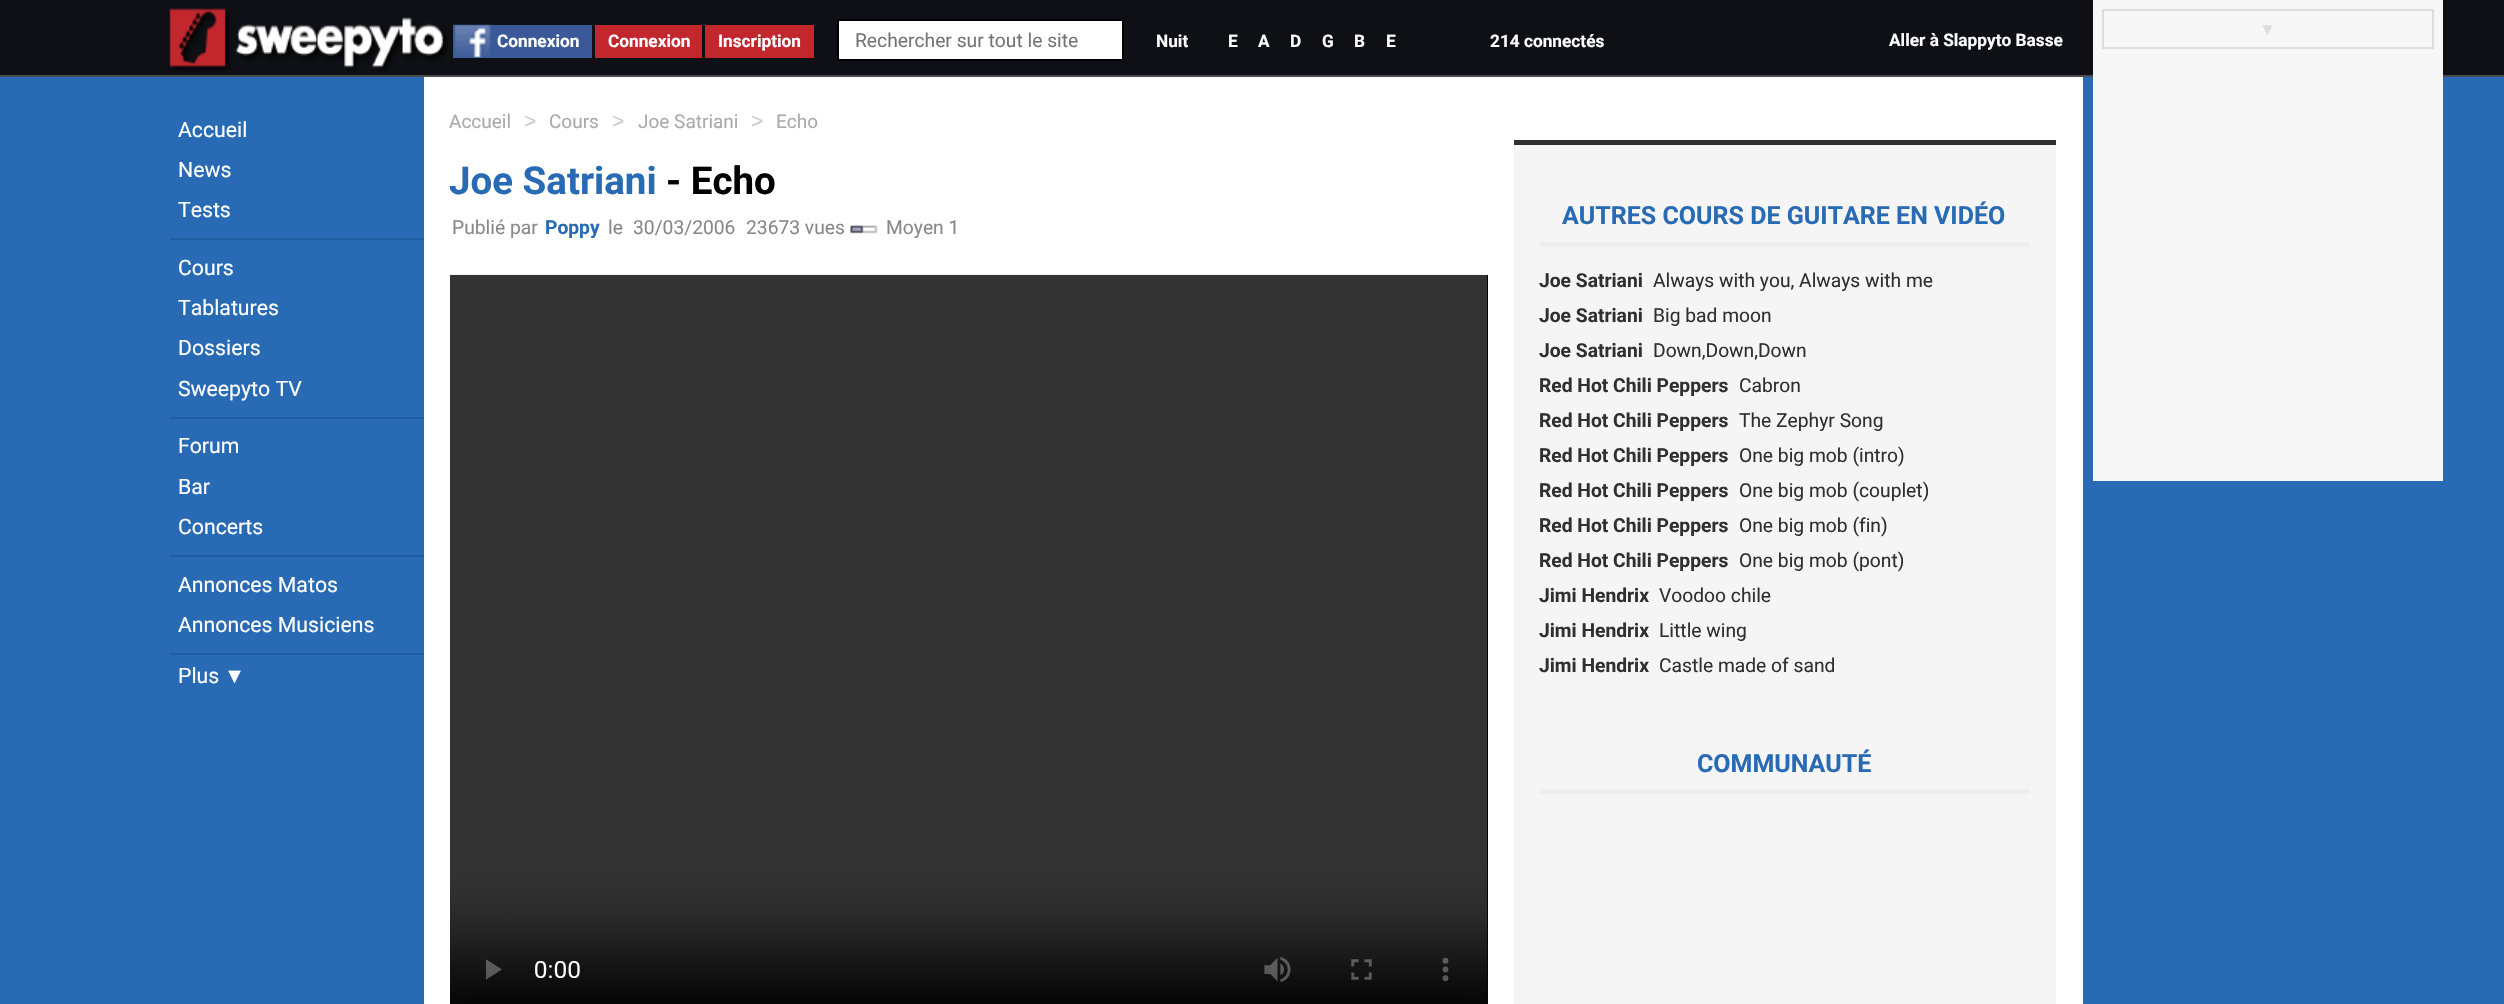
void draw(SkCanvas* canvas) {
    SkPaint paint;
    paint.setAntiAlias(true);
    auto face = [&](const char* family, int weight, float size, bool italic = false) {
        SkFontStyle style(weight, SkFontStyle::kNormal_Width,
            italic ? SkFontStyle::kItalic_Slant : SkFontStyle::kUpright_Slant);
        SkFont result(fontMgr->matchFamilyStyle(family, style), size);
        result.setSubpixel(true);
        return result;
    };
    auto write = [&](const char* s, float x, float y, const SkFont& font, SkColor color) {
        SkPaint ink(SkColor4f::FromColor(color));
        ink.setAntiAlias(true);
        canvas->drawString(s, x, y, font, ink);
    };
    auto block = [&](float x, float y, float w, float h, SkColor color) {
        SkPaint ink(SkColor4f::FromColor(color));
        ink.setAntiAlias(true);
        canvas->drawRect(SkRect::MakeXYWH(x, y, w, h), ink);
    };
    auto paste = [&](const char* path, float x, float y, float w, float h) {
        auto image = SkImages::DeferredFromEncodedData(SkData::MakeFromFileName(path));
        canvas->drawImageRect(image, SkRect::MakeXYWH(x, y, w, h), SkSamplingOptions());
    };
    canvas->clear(SkColorSetRGB(40, 106, 179));
    block(0, 0, 2504, 75, SkColorSetRGB(14, 16, 21));
    block(0, 75, 2504, 2, SkColorSetRGB(76, 76, 76));
    block(2093, 0, 350, 481, SkColorSetRGB(247, 247, 247));
    paint.setStyle(SkPaint::kStroke_Style);
    paint.setStrokeWidth(2);
    paint.setColor(SkColorSetRGB(221, 221, 221));
    canvas->drawRect(SkRect::MakeXYWH(2103, 10, 330, 38), paint);
    auto kFont1 = face("Liberation Sans", 400, 17.25f);
    write("▼", 2259, 35, kFont1, SkColorSetRGB(221, 221, 221));
    block(170, 238, 254, 2, SkColorSetRGB(31, 94, 163));
    auto kFont2 = face("Roboto", 400, 21.25f);
    write("Accueil", 178, 137, kFont2, SK_ColorWHITE);
    write("News", 178, 177, kFont2, SK_ColorWHITE);
    write("Tests", 178, 217, kFont2, SK_ColorWHITE);
    block(170, 417, 254, 2, SkColorSetRGB(31, 94, 163));
    write("Cours", 178, 275, kFont2, SK_ColorWHITE);
    write("Tablatures", 178, 315, kFont2, SK_ColorWHITE);
    write("Dossiers", 178, 355, kFont2, SK_ColorWHITE);
    write("Sweepyto TV", 178, 396, kFont2, SK_ColorWHITE);
    block(170, 555, 254, 2, SkColorSetRGB(31, 94, 163));
    write("Forum", 178, 453, kFont2, SK_ColorWHITE);
    write("Bar", 178, 494, kFont2, SK_ColorWHITE);
    write("Concerts", 178, 534, kFont2, SK_ColorWHITE);
    block(170, 653, 254, 2, SkColorSetRGB(31, 94, 163));
    write("Annonces Matos", 178, 592, kFont2, SK_ColorWHITE);
    write("Annonces Musiciens", 178, 632, kFont2, SK_ColorWHITE);
    write("Plus", 178, 683, kFont2, SK_ColorWHITE);
    auto kFont3 = face("Liberation Sans", 400, 21.25f);
    write("▼", 224, 683, kFont3, SK_ColorWHITE);
    block(424, 77, 1659, 927, SK_ColorWHITE);
    auto kFont4 = face("Roboto", 400, 19);
    write("Accueil", 449, 128, kFont4, SkColorSetRGB(170, 170, 170));
    auto kFont5 = face("Liberation Sans", 400, 21);
    write(">", 524, 128, kFont5, SkColorSetRGB(204, 204, 204));
    write("Cours", 549, 128, kFont4, SkColorSetRGB(170, 170, 170));
    write(">", 612, 128, kFont5, SkColorSetRGB(204, 204, 204));
    write("Joe Satriani", 638, 128, kFont4, SkColorSetRGB(170, 170, 170));
    write(">", 751, 128, kFont5, SkColorSetRGB(204, 204, 204));
    write("Echo", 776, 128, kFont4, SkColorSetRGB(170, 170, 170));
    auto kFont6 = face("Roboto", 700, 38.5f);
    write("Joe Satriani", 449, 194, kFont6, SkColorSetRGB(40, 106, 179));
    write("- Echo", 666, 194, kFont6, SK_ColorBLACK);
    auto kFont7 = face("Roboto", 400, 19.25f);
    write("Publié par", 452, 234, kFont7, SkColorSetRGB(136, 136, 136));
    auto kFont8 = face("Roboto", 700, 19.25f);
    write("Poppy", 545, 234, kFont8, SkColorSetRGB(40, 106, 179));
    write("le", 608, 234, kFont7, SkColorSetRGB(136, 136, 136));
    write("30/03/2006", 633, 234, kFont7, SkColorSetRGB(136, 136, 136));
    write("23673 vues", 746, 234, kFont7, SkColorSetRGB(136, 136, 136));
    paste("pic1.png", 850, 225, 28, 9);
    write("Moyen 1", 886, 234, kFont7, SkColorSetRGB(136, 136, 136));
    block(1487, 275, 1, 729, SK_ColorBLACK);
    paste("pic2.png", 450, 274, 1038, 730);
    block(1514, 145, 542, 859, SkColorSetRGB(245, 245, 245));
    block(1514, 140, 542, 5, SkColorSetRGB(48, 48, 48));
    block(1540, 242, 490, 5, SkColorSetRGB(238, 238, 238));
    auto kFont9 = face("Roboto", 700, 25);
    write("AUTRES COURS DE GUITARE EN VIDÉO", 1562, 224, kFont9, SkColorSetRGB(40, 106, 179));
    write("Joe Satriani", 1539, 287, kFont8, SkColorSetRGB(48, 48, 48));
    write("Always with you, Always with me", 1653, 287, kFont7, SkColorSetRGB(48, 48, 48));
    write("Joe Satriani", 1539, 322, kFont8, SkColorSetRGB(48, 48, 48));
    write("Big bad moon", 1653, 322, kFont7, SkColorSetRGB(48, 48, 48));
    write("Joe Satriani", 1539, 357, kFont8, SkColorSetRGB(48, 48, 48));
    write("Down,Down,Down", 1653, 357, kFont7, SkColorSetRGB(48, 48, 48));
    write("Red Hot Chili Peppers", 1539, 392, kFont8, SkColorSetRGB(48, 48, 48));
    write("Cabron", 1739, 392, kFont7, SkColorSetRGB(48, 48, 48));
    write("Red Hot Chili Peppers", 1539, 427, kFont8, SkColorSetRGB(48, 48, 48));
    write("The Zephyr Song", 1739, 427, kFont7, SkColorSetRGB(48, 48, 48));
    write("Red Hot Chili Peppers", 1539, 462, kFont8, SkColorSetRGB(48, 48, 48));
    write("One big mob (intro)", 1739, 462, kFont7, SkColorSetRGB(48, 48, 48));
    write("Red Hot Chili Peppers", 1539, 497, kFont8, SkColorSetRGB(48, 48, 48));
    write("One big mob (couplet)", 1739, 497, kFont7, SkColorSetRGB(48, 48, 48));
    write("Red Hot Chili Peppers", 1539, 532, kFont8, SkColorSetRGB(48, 48, 48));
    write("One big mob (fin)", 1739, 532, kFont7, SkColorSetRGB(48, 48, 48));
    write("Red Hot Chili Peppers", 1539, 567, kFont8, SkColorSetRGB(48, 48, 48));
    write("One big mob (pont)", 1739, 567, kFont7, SkColorSetRGB(48, 48, 48));
    write("Jimi Hendrix", 1539, 602, kFont8, SkColorSetRGB(48, 48, 48));
    write("Voodoo chile", 1659, 602, kFont7, SkColorSetRGB(48, 48, 48));
    write("Jimi Hendrix", 1539, 637, kFont8, SkColorSetRGB(48, 48, 48));
    write("Little wing", 1659, 637, kFont7, SkColorSetRGB(48, 48, 48));
    write("Jimi Hendrix", 1539, 672, kFont8, SkColorSetRGB(48, 48, 48));
    write("Castle made of sand", 1659, 672, kFont7, SkColorSetRGB(48, 48, 48));
    block(1540, 789, 490, 5, SkColorSetRGB(238, 238, 238));
    write("COMMUNAUTÉ", 1697, 772, kFont9, SkColorSetRGB(40, 106, 179));
    paste("pic3.png", 169, 8, 279, 64);
    block(453, 25, 139, 33, SkColorSetRGB(59, 89, 152));
    paste("pic4.png", 453, 24, 39, 34);
    auto kFont10 = face("Roboto", 700, 17.25f);
    write("Connexion", 497, 47, kFont10, SK_ColorWHITE);
    block(595, 25, 107, 33, SkColorSetRGB(193, 39, 45));
    write("Connexion", 608, 47, kFont10, SK_ColorWHITE);
    block(705, 25, 109, 33, SkColorSetRGB(193, 39, 45));
    write("Inscription", 718, 47, kFont10, SK_ColorWHITE);
    paint.setStyle(SkPaint::kFill_Style);
    paint.setColor(SK_ColorWHITE);
    canvas->drawRect(SkRect::MakeXYWH(838, 20, 285, 40), paint);
    paint.setStyle(SkPaint::kStroke_Style);
    paint.setColor(SK_ColorBLACK);
    canvas->drawRect(SkRect::MakeXYWH(838, 20, 285, 40), paint);
    write("Rechercher sur tout le site", 855, 47, kFont7, SkColorSetRGB(117, 117, 117));
    write("Nuit", 1156, 47, kFont10, SK_ColorWHITE);
    write("E", 1228, 47, kFont10, SK_ColorWHITE);
    write("A", 1258, 47, kFont10, SK_ColorWHITE);
    write("D", 1290, 47, kFont10, SK_ColorWHITE);
    write("G", 1322, 47, kFont10, SK_ColorWHITE);
    write("B", 1354, 47, kFont10, SK_ColorWHITE);
    write("E", 1386, 47, kFont10, SK_ColorWHITE);
    write("214 connectés", 1490, 47, kFont10, SK_ColorWHITE);
    write("Aller à Slappyto Basse", 1889, 46, kFont10, SK_ColorWHITE);
}
